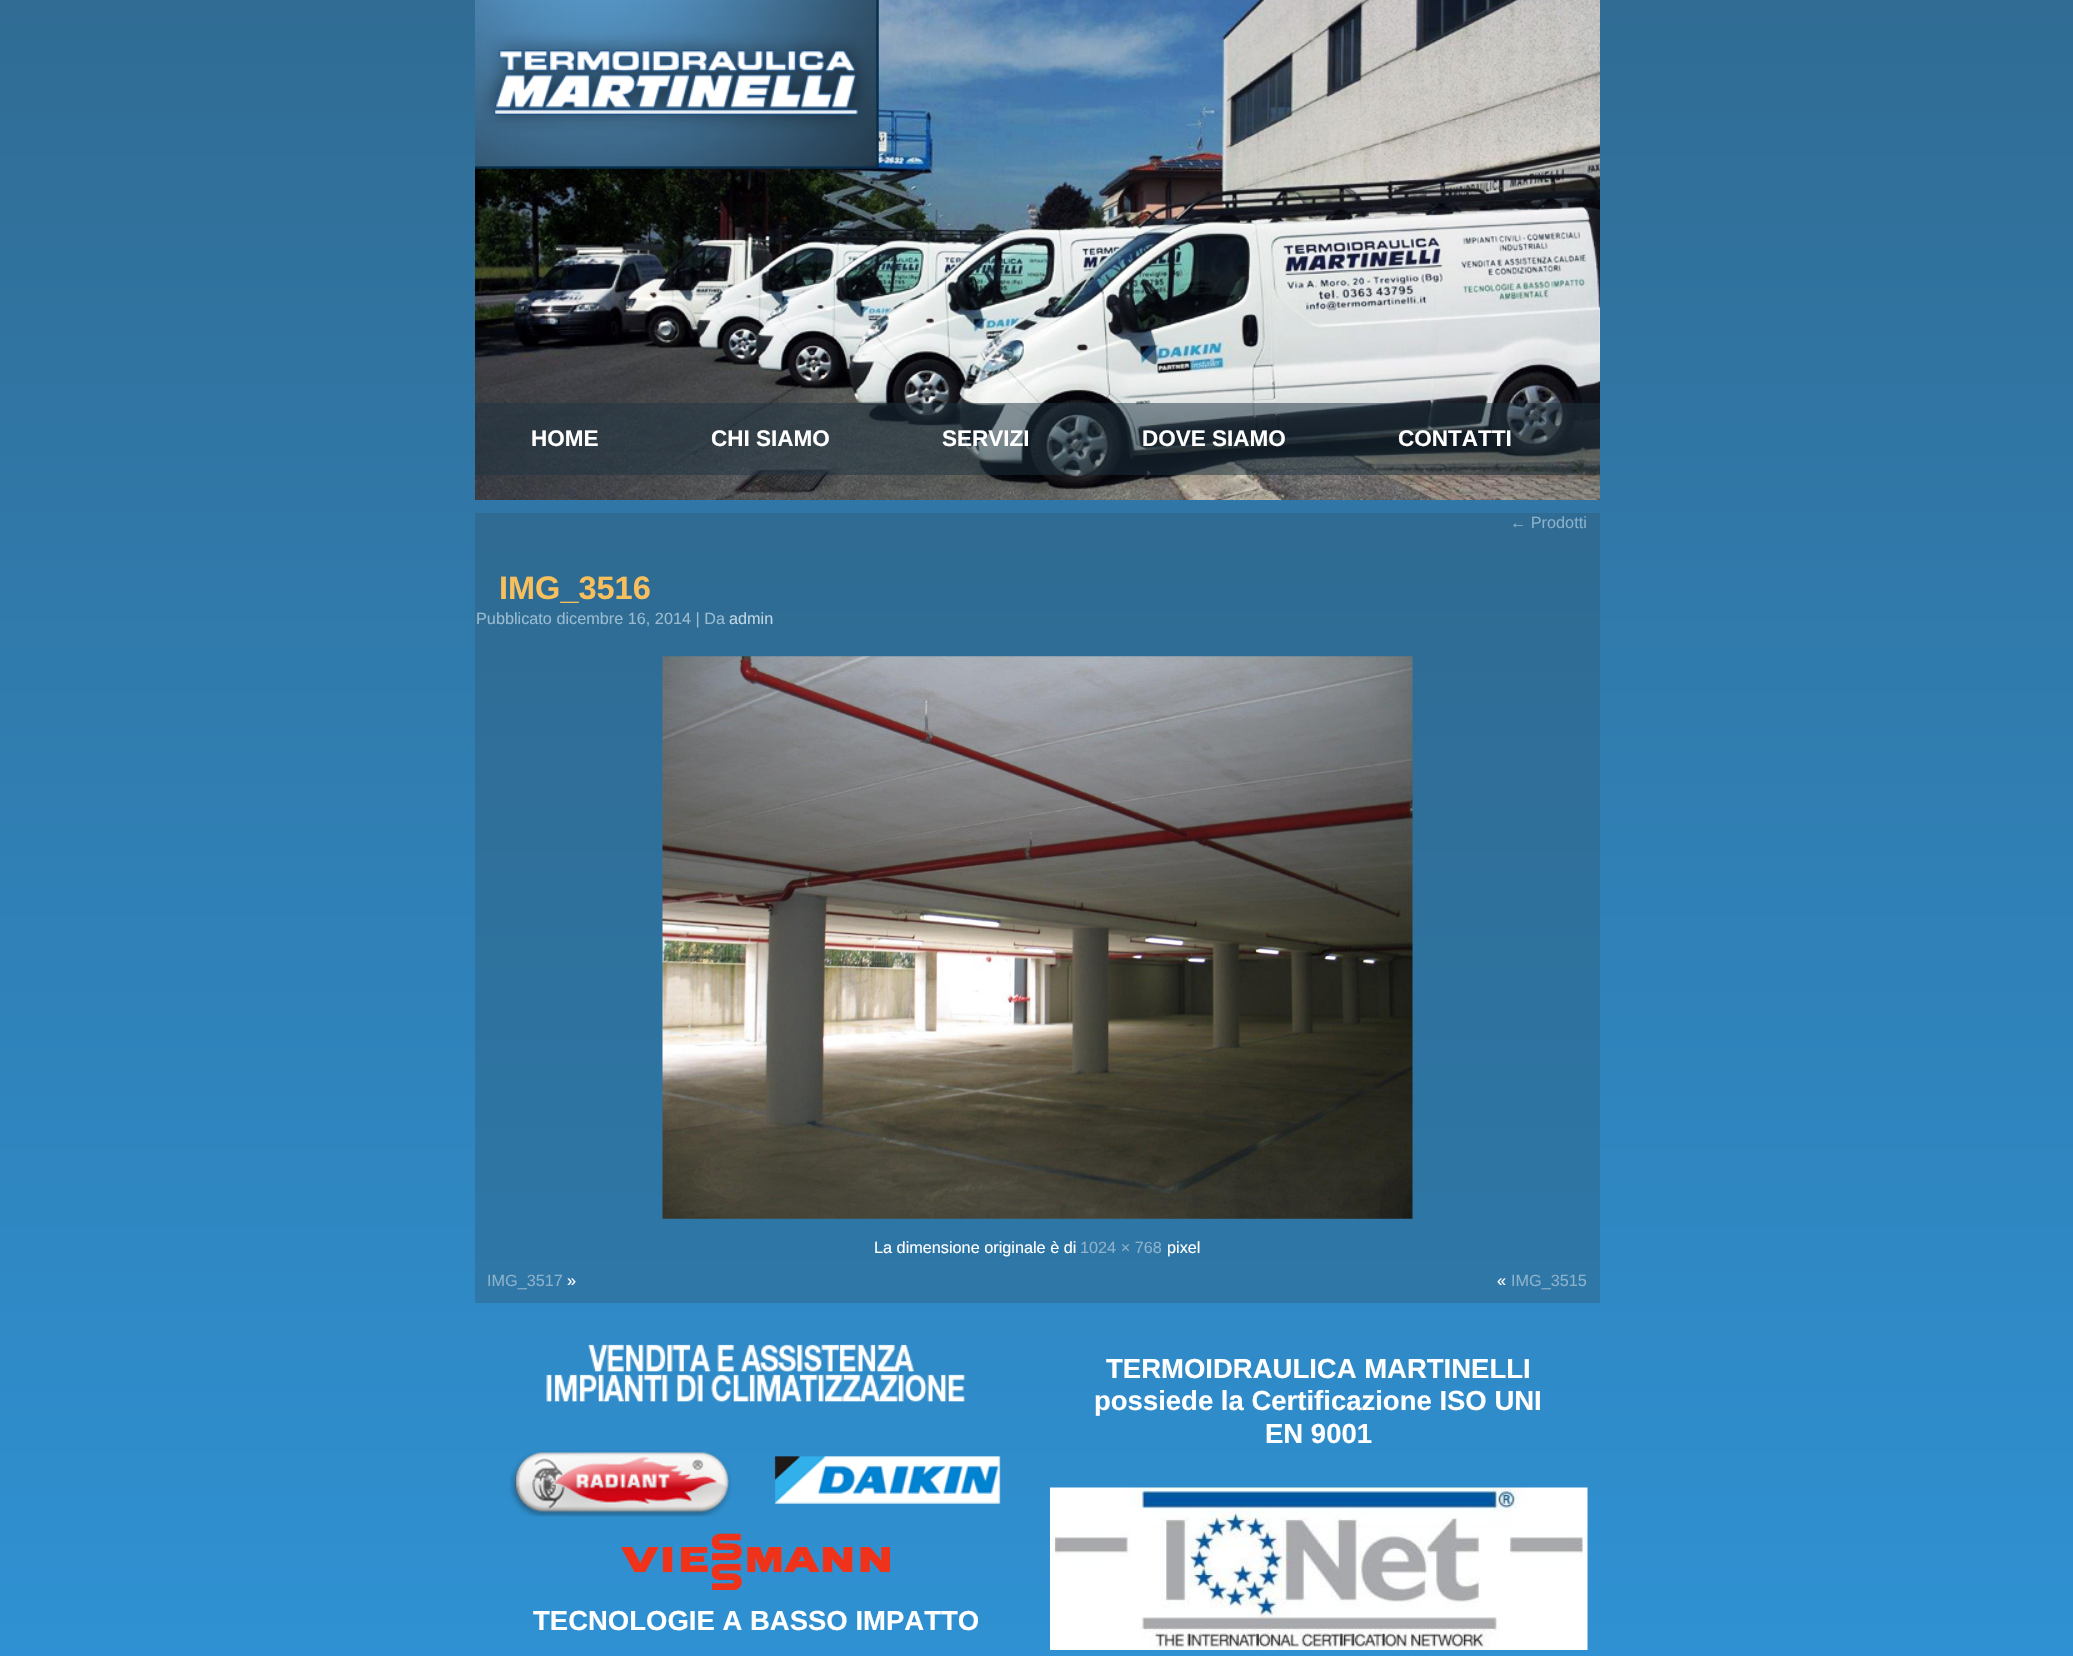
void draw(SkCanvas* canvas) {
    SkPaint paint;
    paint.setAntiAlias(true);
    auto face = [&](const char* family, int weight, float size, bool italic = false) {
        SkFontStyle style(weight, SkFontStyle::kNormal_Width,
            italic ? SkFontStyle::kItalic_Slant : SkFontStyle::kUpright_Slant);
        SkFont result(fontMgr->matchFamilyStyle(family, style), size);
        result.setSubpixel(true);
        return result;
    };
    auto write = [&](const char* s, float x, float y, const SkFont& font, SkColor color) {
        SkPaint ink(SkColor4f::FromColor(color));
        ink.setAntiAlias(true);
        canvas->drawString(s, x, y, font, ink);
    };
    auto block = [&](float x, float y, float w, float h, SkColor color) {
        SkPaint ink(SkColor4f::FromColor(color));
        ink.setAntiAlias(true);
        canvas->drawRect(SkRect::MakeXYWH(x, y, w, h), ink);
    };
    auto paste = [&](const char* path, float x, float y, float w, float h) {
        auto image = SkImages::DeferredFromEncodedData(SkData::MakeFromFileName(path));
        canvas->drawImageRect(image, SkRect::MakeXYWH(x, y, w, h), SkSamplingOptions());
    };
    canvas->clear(SK_ColorWHITE);
    {
        const SkColor colors[] = {SkColorSetRGB(48, 108, 148), SkColorSetRGB(47, 147, 214)};
        const float stops[] = {0, 1};
        const SkPoint ends[] = {{1037, 0}, {1037, 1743}};
        paint.setShader(SkGradientShader::MakeLinear(ends, colors, stops, 2, SkTileMode::kClamp));
        paint.setAlpha(255);
    }
    canvas->drawRect(SkRect::MakeXYWH(0, 0, 2073, 1656), paint);
    {
        const SkColor colors[] = {SkColorSetRGB(47, 99, 133), SkColorSetRGB(46, 126, 179)};
        const float stops[] = {0, 1};
        const SkPoint ends[] = {{1037, 0}, {1037, 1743}};
        paint.setShader(SkGradientShader::MakeLinear(ends, colors, stops, 2, SkTileMode::kClamp));
        paint.setAlpha(255);
    }
    canvas->drawRect(SkRect::MakeXYWH(475, 513, 1125, 790), paint);
    paste("pic1.png", 475, 0, 1125, 500);
    block(475, 403, 1125, 72, SkColorSetARGB(128, 28, 49, 63));
    auto kFont1 = face("Liberation Sans", 700, 22.5f);
    write("HOME", 531, 446, kFont1, SK_ColorWHITE);
    write("CHI SIAMO", 711, 446, kFont1, SK_ColorWHITE);
    write("SERVIZI", 942, 446, kFont1, SK_ColorWHITE);
    write("DOVE SIAMO", 1142, 446, kFont1, SK_ColorWHITE);
    write("CONTATTI", 1398, 446, kFont1, SK_ColorWHITE);
    auto kFont2 = face("Liberation Sans", 400, 16.25f);
    write("← Prodotti", 1510, 528, kFont2, SkColorSetRGB(139, 177, 203));
    auto kFont3 = face("Liberation Sans", 700, 32.5f);
    write("IMG_3516", 499, 599, kFont3, SkColorSetRGB(248, 191, 93));
    write("Pubblicato dicembre 16, 2014 | Da", 476, 624, kFont2, SkColorSetRGB(153, 187, 209));
    write("admin", 729, 624, kFont2, SkColorSetRGB(192, 213, 227));
    paste("pic2.png", 662, 656, 751, 563);
    write("La dimensione originale è di", 874, 1253, kFont2, SK_ColorWHITE);
    write("1024 × 768", 1080, 1253, kFont2, SkColorSetRGB(139, 177, 203));
    write("pixel", 1167, 1253, kFont2, SK_ColorWHITE);
    write("IMG_3517", 487, 1286, kFont2, SkColorSetRGB(139, 177, 203));
    write("»", 567, 1286, kFont2, SK_ColorWHITE);
    write("«", 1497, 1286, kFont2, SK_ColorWHITE);
    write("IMG_3515", 1511, 1286, kFont2, SkColorSetRGB(139, 177, 203));
    auto kFont4 = face("Liberation Sans", 700, 27.5f);
    write("TERMOIDRAULICA MARTINELLI", 1106, 1378, kFont4, SK_ColorWHITE);
    write("possiede la Certificazione ISO UNI", 1094, 1410, kFont4, SK_ColorWHITE);
    write("EN 9001", 1265, 1443, kFont4, SK_ColorWHITE);
    paste("pic3.png", 1050, 1487, 538, 163);
    paste("pic4.png", 546, 1344, 420, 58);
    paste("pic5.png", 510, 1450, 222, 67);
    paste("pic6.png", 774, 1456, 227, 48);
    paste("pic7.png", 621, 1533, 269, 57);
    write("TECNOLOGIE A BASSO IMPATTO", 533, 1630, kFont4, SK_ColorWHITE);
}
